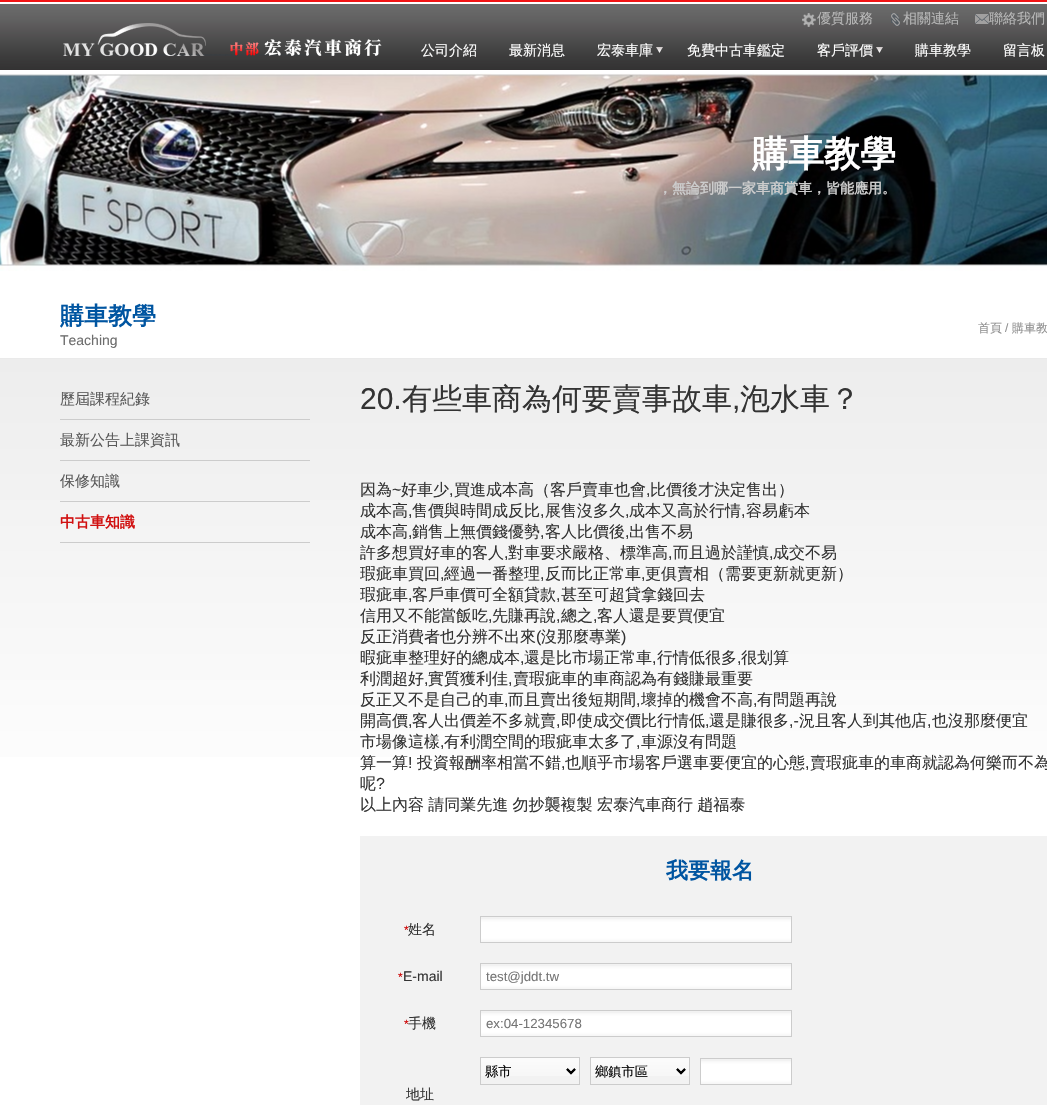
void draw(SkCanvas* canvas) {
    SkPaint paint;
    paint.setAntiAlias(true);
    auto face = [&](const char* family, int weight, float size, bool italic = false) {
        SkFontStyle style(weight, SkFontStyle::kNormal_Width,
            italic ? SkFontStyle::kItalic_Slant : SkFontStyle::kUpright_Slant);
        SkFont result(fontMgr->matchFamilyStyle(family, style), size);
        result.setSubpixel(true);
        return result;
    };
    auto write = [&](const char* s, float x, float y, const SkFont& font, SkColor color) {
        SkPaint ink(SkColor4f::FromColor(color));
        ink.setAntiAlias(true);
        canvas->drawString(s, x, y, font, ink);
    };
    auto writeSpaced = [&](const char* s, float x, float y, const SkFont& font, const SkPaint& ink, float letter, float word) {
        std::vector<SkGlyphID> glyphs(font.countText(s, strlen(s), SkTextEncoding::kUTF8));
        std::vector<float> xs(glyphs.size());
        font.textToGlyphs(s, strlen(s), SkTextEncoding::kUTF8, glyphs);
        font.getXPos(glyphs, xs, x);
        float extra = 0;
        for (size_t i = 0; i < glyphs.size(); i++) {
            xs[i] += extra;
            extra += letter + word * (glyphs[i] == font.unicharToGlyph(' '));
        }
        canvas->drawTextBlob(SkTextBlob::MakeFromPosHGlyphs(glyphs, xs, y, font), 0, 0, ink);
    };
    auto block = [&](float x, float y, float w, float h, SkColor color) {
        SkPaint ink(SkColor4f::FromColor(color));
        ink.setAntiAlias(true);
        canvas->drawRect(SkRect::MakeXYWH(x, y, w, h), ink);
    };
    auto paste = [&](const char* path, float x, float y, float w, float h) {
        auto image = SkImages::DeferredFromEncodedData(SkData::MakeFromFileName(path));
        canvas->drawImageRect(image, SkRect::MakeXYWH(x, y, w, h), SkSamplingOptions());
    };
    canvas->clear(SK_ColorWHITE);
    paste("pic1.png", 0, 0, 1047, 70);
    paste("pic2.png", 63, 23, 319, 33);
    paste("pic3.png", 802, 13, 14, 14);
    auto kFont1 = face("WenQuanYi Zen Hei", 500, 14);
    write("優質服務", 817, 23, kFont1, SkColorSetRGB(183, 183, 183));
    paste("pic4.png", 891, 13, 9, 13);
    write("相關連結", 903, 23, kFont1, SkColorSetRGB(183, 183, 183));
    paste("pic5.png", 975, 14, 14, 10);
    write("聯絡我們", 989, 23, kFont1, SkColorSetRGB(183, 183, 183));
    write("公司介紹", 421, 55, kFont1, SK_ColorWHITE);
    write("最新消息", 509, 55, kFont1, SK_ColorWHITE);
    paste("pic6.png", 656, 47, 7, 6);
    write("宏泰車庫", 597, 55, kFont1, SK_ColorWHITE);
    write("免費中古車鑑定", 687, 55, kFont1, SK_ColorWHITE);
    paste("pic6.png", 876, 47, 7, 6);
    write("客戶評價", 817, 55, kFont1, SK_ColorWHITE);
    write("購車教學", 915, 55, kFont1, SK_ColorWHITE);
    write("留言板", 1003, 55, kFont1, SK_ColorWHITE);
    paste("pic7.png", 0, 73, 1047, 198);
    auto kFont2 = face("WenQuanYi Zen Hei", 700, 36);
    write("購車教學", 752, 166, kFont2, SK_ColorWHITE);
    auto kFont3 = face("WenQuanYi Zen Hei", 700, 14);
    write("，無論到哪一家車商賞車，皆能應用。", 658, 193, kFont3, SkColorSetRGB(204, 204, 204));
    auto kFont4 = face("WenQuanYi Zen Hei", 700, 24);
    write("購車教學", 60, 324, kFont4, SkColorSetRGB(0, 85, 161));
    auto kFont5 = face("Liberation Sans", 400, 14);
    write("Teaching", 60, 345, kFont5, SkColorSetRGB(109, 109, 109));
    auto kFont6 = face("WenQuanYi Zen Hei", 500, 12);
    write("首頁", 978, 332, kFont6, SkColorSetRGB(143, 143, 143));
    auto kFont7 = face("Liberation Sans", 400, 12);
    write("/", 1005, 332, kFont7, SkColorSetRGB(143, 143, 143));
    write("購車教", 1012, 332, kFont6, SkColorSetRGB(143, 143, 143));
    {
        const SkColor colors[] = {SkColorSetRGB(237, 237, 237), SK_ColorWHITE};
        const float stops[] = {0, 0.43f};
        const SkPoint ends[] = {{560, 359}, {560, 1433}};
        paint.setShader(SkGradientShader::MakeLinear(ends, colors, stops, 2, SkTileMode::kClamp));
        paint.setAlpha(255);
    }
    canvas->drawRect(SkRect::MakeXYWH(0, 359, 1047, 398), paint);
    block(0, 358, 1047, 1, SkColorSetRGB(234, 234, 234));
    block(60, 419, 250, 1, SkColorSetRGB(204, 204, 204));
    auto kFont8 = face("WenQuanYi Zen Hei", 500, 15);
    write("歷屆課程紀錄", 60, 404, kFont8, SkColorSetRGB(89, 89, 89));
    block(60, 460, 250, 1, SkColorSetRGB(204, 204, 204));
    write("最新公告上課資訊", 60, 445, kFont8, SkColorSetRGB(89, 89, 89));
    block(60, 501, 250, 1, SkColorSetRGB(204, 204, 204));
    write("保修知識", 60, 486, kFont8, SkColorSetRGB(89, 89, 89));
    block(60, 542, 250, 1, SkColorSetRGB(204, 204, 204));
    auto kFont9 = face("WenQuanYi Zen Hei", 700, 15);
    write("中古車知識", 60, 527, kFont9, SkColorSetRGB(209, 16, 16));
    auto kFont10 = face("Liberation Sans", 400, 30);
    write("20.", 360, 409, kFont10, SkColorSetRGB(51, 51, 51));
    auto kFont11 = face("WenQuanYi Zen Hei", 500, 30);
    write("有些車商為何要賣事故車", 402, 409, kFont11, SkColorSetRGB(51, 51, 51));
    write(",", 732, 409, kFont10, SkColorSetRGB(51, 51, 51));
    write("泡水車？", 740, 409, kFont11, SkColorSetRGB(51, 51, 51));
    auto kFont12 = face("WenQuanYi Zen Hei", 500, 16);
    write("因為", 360, 495, kFont12, SkColorSetRGB(51, 51, 51));
    auto kFont13 = face("Liberation Sans", 400, 16);
    write("~", 392, 495, kFont13, SkColorSetRGB(51, 51, 51));
    write("好車少", 401, 495, kFont12, SkColorSetRGB(51, 51, 51));
    write("買進成本高（客戶賣車也會", 454, 495, kFont12, SkColorSetRGB(51, 51, 51));
    write("比價後才決定售出）", 650, 495, kFont12, SkColorSetRGB(51, 51, 51));
    write(",", 449, 495, kFont13, SkColorSetRGB(51, 51, 51));
    write(",", 646, 495, kFont13, SkColorSetRGB(51, 51, 51));
    write("成本高", 360, 516, kFont12, SkColorSetRGB(51, 51, 51));
    write(",", 408, 516, kFont13, SkColorSetRGB(51, 51, 51));
    write("售價與時間成反比", 412, 516, kFont12, SkColorSetRGB(51, 51, 51));
    write(",", 540, 516, kFont13, SkColorSetRGB(51, 51, 51));
    write("展售沒多久", 545, 516, kFont12, SkColorSetRGB(51, 51, 51));
    write(",", 625, 516, kFont13, SkColorSetRGB(51, 51, 51));
    write("成本又高於行情", 629, 516, kFont12, SkColorSetRGB(51, 51, 51));
    write(",", 741, 516, kFont13, SkColorSetRGB(51, 51, 51));
    write("容易虧本", 746, 516, kFont12, SkColorSetRGB(51, 51, 51));
    write("成本高", 360, 537, kFont12, SkColorSetRGB(51, 51, 51));
    write(",", 408, 537, kFont13, SkColorSetRGB(51, 51, 51));
    write("銷售上無價錢優勢", 412, 537, kFont12, SkColorSetRGB(51, 51, 51));
    write(",", 540, 537, kFont13, SkColorSetRGB(51, 51, 51));
    write("客人比價後", 545, 537, kFont12, SkColorSetRGB(51, 51, 51));
    write(",", 625, 537, kFont13, SkColorSetRGB(51, 51, 51));
    write("出售不易", 629, 537, kFont12, SkColorSetRGB(51, 51, 51));
    write("許多想買好車的客人", 360, 558, kFont12, SkColorSetRGB(51, 51, 51));
    write(",", 504, 558, kFont13, SkColorSetRGB(51, 51, 51));
    write("對車要求嚴格、標準高", 508, 558, kFont12, SkColorSetRGB(51, 51, 51));
    write(",", 668, 558, kFont13, SkColorSetRGB(51, 51, 51));
    write("而且過於謹慎", 673, 558, kFont12, SkColorSetRGB(51, 51, 51));
    write(",", 769, 558, kFont13, SkColorSetRGB(51, 51, 51));
    write("成交不易", 773, 558, kFont12, SkColorSetRGB(51, 51, 51));
    write("瑕疵車買回", 360, 579, kFont12, SkColorSetRGB(51, 51, 51));
    write(",", 440, 579, kFont13, SkColorSetRGB(51, 51, 51));
    write("經過一番整理", 444, 579, kFont12, SkColorSetRGB(51, 51, 51));
    write(",", 540, 579, kFont13, SkColorSetRGB(51, 51, 51));
    write("反而比正常車", 545, 579, kFont12, SkColorSetRGB(51, 51, 51));
    write(",", 641, 579, kFont13, SkColorSetRGB(51, 51, 51));
    write("更俱賣相（需要更新就更新）", 645, 579, kFont12, SkColorSetRGB(51, 51, 51));
    write("瑕疵車", 360, 600, kFont12, SkColorSetRGB(51, 51, 51));
    write(",", 408, 600, kFont13, SkColorSetRGB(51, 51, 51));
    write("客戶車價可全額貸款", 412, 600, kFont12, SkColorSetRGB(51, 51, 51));
    write(",", 556, 600, kFont13, SkColorSetRGB(51, 51, 51));
    write("甚至可超貸拿錢回去", 561, 600, kFont12, SkColorSetRGB(51, 51, 51));
    write("信用又不能當飯吃", 360, 621, kFont12, SkColorSetRGB(51, 51, 51));
    write(",", 488, 621, kFont13, SkColorSetRGB(51, 51, 51));
    write("先賺再說", 492, 621, kFont12, SkColorSetRGB(51, 51, 51));
    write(",", 556, 621, kFont13, SkColorSetRGB(51, 51, 51));
    write("總之", 561, 621, kFont12, SkColorSetRGB(51, 51, 51));
    write(",", 593, 621, kFont13, SkColorSetRGB(51, 51, 51));
    write("客人還是要買便宜", 597, 621, kFont12, SkColorSetRGB(51, 51, 51));
    write("反正消費者也分辨不出來", 360, 642, kFont12, SkColorSetRGB(51, 51, 51));
    write("(", 536, 642, kFont13, SkColorSetRGB(51, 51, 51));
    write("沒那麼專業", 541, 642, kFont12, SkColorSetRGB(51, 51, 51));
    write(")", 621, 642, kFont13, SkColorSetRGB(51, 51, 51));
    write("暇疵車整理好的總成本", 360, 663, kFont12, SkColorSetRGB(51, 51, 51));
    write(",", 520, 663, kFont13, SkColorSetRGB(51, 51, 51));
    write("還是比市場正常車", 524, 663, kFont12, SkColorSetRGB(51, 51, 51));
    write(",", 652, 663, kFont13, SkColorSetRGB(51, 51, 51));
    write("行情低很多", 657, 663, kFont12, SkColorSetRGB(51, 51, 51));
    write(",", 737, 663, kFont13, SkColorSetRGB(51, 51, 51));
    write("很划算", 741, 663, kFont12, SkColorSetRGB(51, 51, 51));
    write("利潤超好", 360, 684, kFont12, SkColorSetRGB(51, 51, 51));
    write(",", 424, 684, kFont13, SkColorSetRGB(51, 51, 51));
    write("實質獲利佳", 428, 684, kFont12, SkColorSetRGB(51, 51, 51));
    write(",", 508, 684, kFont13, SkColorSetRGB(51, 51, 51));
    write("賣瑕疵車的車商認為有錢賺最重要", 513, 684, kFont12, SkColorSetRGB(51, 51, 51));
    write("反正又不是自己的車", 360, 705, kFont12, SkColorSetRGB(51, 51, 51));
    write(",", 504, 705, kFont13, SkColorSetRGB(51, 51, 51));
    write("而且賣出後短期間", 508, 705, kFont12, SkColorSetRGB(51, 51, 51));
    write(",", 636, 705, kFont13, SkColorSetRGB(51, 51, 51));
    write("壞掉的機會不高", 641, 705, kFont12, SkColorSetRGB(51, 51, 51));
    write(",", 753, 705, kFont13, SkColorSetRGB(51, 51, 51));
    write("有問題再說", 757, 705, kFont12, SkColorSetRGB(51, 51, 51));
    write("開高價", 360, 726, kFont12, SkColorSetRGB(51, 51, 51));
    write(",", 408, 726, kFont13, SkColorSetRGB(51, 51, 51));
    write("客人出價差不多就賣", 412, 726, kFont12, SkColorSetRGB(51, 51, 51));
    write(",", 556, 726, kFont13, SkColorSetRGB(51, 51, 51));
    write("即使成交價比行情低", 561, 726, kFont12, SkColorSetRGB(51, 51, 51));
    write(",", 705, 726, kFont13, SkColorSetRGB(51, 51, 51));
    write("還是賺很多", 709, 726, kFont12, SkColorSetRGB(51, 51, 51));
    write(",-", 789, 726, kFont13, SkColorSetRGB(51, 51, 51));
    write("況且客人到其他店", 799, 726, kFont12, SkColorSetRGB(51, 51, 51));
    write(",", 927, 726, kFont13, SkColorSetRGB(51, 51, 51));
    write("也沒那麼便宜", 932, 726, kFont12, SkColorSetRGB(51, 51, 51));
    write("市場像這樣", 360, 747, kFont12, SkColorSetRGB(51, 51, 51));
    write(",", 440, 747, kFont13, SkColorSetRGB(51, 51, 51));
    write("有利潤空間的瑕疵車太多了", 444, 747, kFont12, SkColorSetRGB(51, 51, 51));
    write(",", 636, 747, kFont13, SkColorSetRGB(51, 51, 51));
    write("車源沒有問題", 641, 747, kFont12, SkColorSetRGB(51, 51, 51));
    write("算一算", 360, 768, kFont12, SkColorSetRGB(51, 51, 51));
    write("!", 408, 768, kFont13, SkColorSetRGB(51, 51, 51));
    write("投資報酬率相當不錯", 417, 768, kFont12, SkColorSetRGB(51, 51, 51));
    write("也順乎市場客戶選車要便宜的心態", 565, 768, kFont12, SkColorSetRGB(51, 51, 51));
    write("賣瑕疵車的車商就認為何樂而不為", 810, 768, kFont12, SkColorSetRGB(51, 51, 51));
    write(",", 561, 768, kFont13, SkColorSetRGB(51, 51, 51));
    write(",", 805, 768, kFont13, SkColorSetRGB(51, 51, 51));
    write("呢", 360, 789, kFont12, SkColorSetRGB(51, 51, 51));
    write("?", 376, 789, kFont13, SkColorSetRGB(51, 51, 51));
    paint.setShader(nullptr);
    paint.setColor(SkColorSetRGB(51, 51, 51));
    writeSpaced("以上內容 請同業先進 勿抄襲複製 宏泰汽車商行 趙福泰", 360, 810, kFont12, paint, 0, -0.5f);
    block(360, 836, 687, 269, SkColorSetRGB(242, 242, 242));
    auto kFont14 = face("WenQuanYi Zen Hei", 700, 22);
    write("我要報名", 666, 878, kFont14, SkColorSetRGB(0, 85, 161));
    write("*", 404, 934, kFont7, SkColorSetRGB(204, 0, 0));
    write("姓名", 408, 934, kFont1, SkColorSetRGB(51, 51, 51));
    paste("pic8.png", 481, 919, 310, 23);
    paint.setStyle(SkPaint::kStroke_Style);
    paint.setStrokeWidth(1);
    paint.setColor(SkColorSetRGB(204, 204, 204));
    canvas->drawRect(SkRect::MakeXYWH(480.5f, 916.5f, 311, 26), paint);
    write("*", 398, 981, kFont7, SkColorSetRGB(204, 0, 0));
    write("E-mail", 403, 981, kFont5, SkColorSetRGB(51, 51, 51));
    paste("pic8.png", 481, 966, 310, 23);
    canvas->drawRect(SkRect::MakeXYWH(480.5f, 963.5f, 311, 26), paint);
    auto kFont15 = face("Liberation Sans", 400, 13.25f);
    write("test@jddt.tw", 486, 981, kFont15, SkColorSetRGB(117, 117, 117));
    write("*", 404, 1028, kFont7, SkColorSetRGB(204, 0, 0));
    write("手機", 408, 1028, kFont1, SkColorSetRGB(51, 51, 51));
    paste("pic8.png", 481, 1013, 310, 23);
    canvas->drawRect(SkRect::MakeXYWH(480.5f, 1010.5f, 311, 26), paint);
    write("ex:04-12345678", 486, 1028, kFont15, SkColorSetRGB(117, 117, 117));
    paste("pic9.png", 481, 1058, 98, 18);
    canvas->drawRect(SkRect::MakeXYWH(480.5f, 1057.5f, 99, 27), paint);
    paint.setStrokeWidth(2);
    paint.setColor(SK_ColorBLACK);
    canvas->drawPath(SkPathBuilder().moveTo(567, 1069).lineTo(571, 1073).lineTo(575, 1069).detach(), paint);
    auto kFont16 = face("WenQuanYi Zen Hei", 500, 13.25f);
    write("縣市", 485, 1076, kFont16, SK_ColorBLACK);
    paste("pic9.png", 591, 1058, 98, 18);
    paint.setStrokeWidth(1);
    paint.setColor(SkColorSetRGB(204, 204, 204));
    canvas->drawRect(SkRect::MakeXYWH(590.5f, 1057.5f, 99, 27), paint);
    paint.setStrokeWidth(2);
    paint.setColor(SK_ColorBLACK);
    canvas->drawPath(SkPathBuilder().moveTo(677, 1069).lineTo(681, 1073).lineTo(685, 1069).detach(), paint);
    write("鄉鎮市區", 595, 1076, kFont16, SK_ColorBLACK);
    paste("pic10.png", 701, 1061, 90, 23);
    paint.setStrokeWidth(1);
    paint.setColor(SkColorSetRGB(204, 204, 204));
    canvas->drawRect(SkRect::MakeXYWH(700.5f, 1058.5f, 91, 26), paint);
    write("地址", 406, 1099, kFont1, SkColorSetRGB(51, 51, 51));
}
